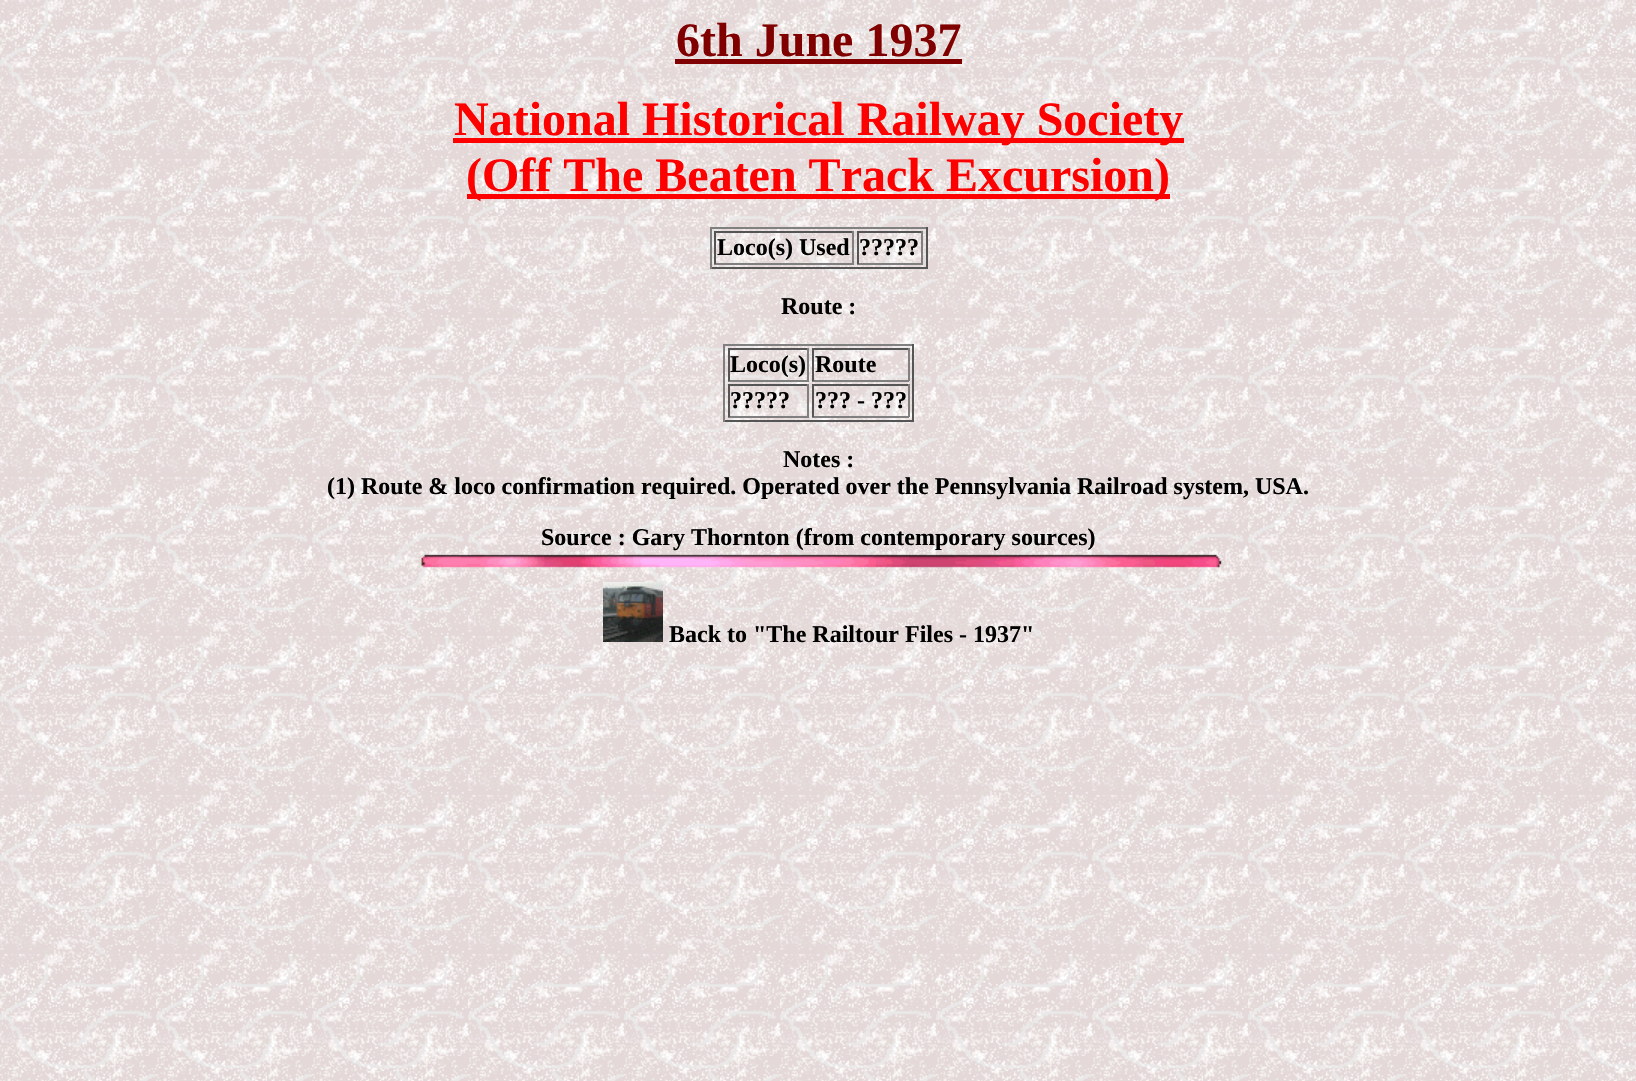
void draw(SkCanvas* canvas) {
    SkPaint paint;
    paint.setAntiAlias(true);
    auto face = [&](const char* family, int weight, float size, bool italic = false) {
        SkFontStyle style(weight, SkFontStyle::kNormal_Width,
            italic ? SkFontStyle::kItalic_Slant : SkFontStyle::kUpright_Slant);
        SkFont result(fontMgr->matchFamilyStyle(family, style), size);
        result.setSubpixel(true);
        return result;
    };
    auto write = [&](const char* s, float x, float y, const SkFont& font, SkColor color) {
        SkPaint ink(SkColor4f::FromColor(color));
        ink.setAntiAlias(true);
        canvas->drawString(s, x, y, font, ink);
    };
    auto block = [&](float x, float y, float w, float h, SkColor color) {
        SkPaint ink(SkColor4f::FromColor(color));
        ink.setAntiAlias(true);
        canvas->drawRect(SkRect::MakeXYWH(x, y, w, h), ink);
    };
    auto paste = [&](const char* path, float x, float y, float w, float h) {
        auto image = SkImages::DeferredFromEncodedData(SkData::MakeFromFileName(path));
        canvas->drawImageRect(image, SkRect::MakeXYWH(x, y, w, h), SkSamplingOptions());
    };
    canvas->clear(SK_ColorWHITE);
    paste("pic1.png", 0, 0, 1636, 1081);
    auto kFont1 = face("Liberation Serif", 700, 48);
    write("6th June 1937", 676, 56, kFont1, SkColorSetRGB(128, 0, 0));
    block(675, 59, 287, 5, SkColorSetRGB(128, 0, 0));
    block(453, 138, 731, 5, SkColorSetRGB(255, 0, 0));
    write("National Historical Railway Society", 454, 135, kFont1, SkColorSetRGB(255, 0, 0));
    block(467, 194, 703, 5, SkColorSetRGB(255, 0, 0));
    write("(Off The Beaten Track Excursion)", 466, 191, kFont1, SkColorSetRGB(255, 0, 0));
    block(710, 227, 217, 2, SkColorSetRGB(128, 128, 128));
    block(926, 227, 2, 42, SkColorSetRGB(85, 85, 85));
    block(710, 267, 217, 2, SkColorSetRGB(85, 85, 85));
    block(710, 227, 2, 42, SkColorSetRGB(128, 128, 128));
    block(714, 231, 140, 2, SkColorSetRGB(85, 85, 85));
    block(852, 231, 2, 33, SkColorSetRGB(128, 128, 128));
    block(714, 263, 140, 2, SkColorSetRGB(128, 128, 128));
    block(714, 231, 2, 33, SkColorSetRGB(85, 85, 85));
    auto kFont2 = face("Liberation Serif", 700, 24);
    write("Loco(s) Used", 717, 255, kFont2, SK_ColorBLACK);
    block(857, 231, 66, 2, SkColorSetRGB(85, 85, 85));
    block(921, 231, 2, 33, SkColorSetRGB(128, 128, 128));
    block(857, 263, 66, 2, SkColorSetRGB(128, 128, 128));
    block(857, 231, 2, 33, SkColorSetRGB(85, 85, 85));
    write("?\077?\077?", 859, 255, kFont2, SK_ColorBLACK);
    write("Route :", 781, 314, kFont2, SK_ColorBLACK);
    block(723, 344, 191, 2, SkColorSetRGB(128, 128, 128));
    block(912, 344, 2, 78, SkColorSetRGB(85, 85, 85));
    block(723, 420, 191, 2, SkColorSetRGB(85, 85, 85));
    block(723, 344, 2, 78, SkColorSetRGB(128, 128, 128));
    block(728, 348, 81, 2, SkColorSetRGB(85, 85, 85));
    block(807, 348, 2, 33, SkColorSetRGB(128, 128, 128));
    block(728, 380, 81, 2, SkColorSetRGB(128, 128, 128));
    block(728, 348, 2, 33, SkColorSetRGB(85, 85, 85));
    write("Loco(s)", 730, 372, kFont2, SK_ColorBLACK);
    block(812, 348, 97, 2, SkColorSetRGB(85, 85, 85));
    block(908, 348, 2, 33, SkColorSetRGB(128, 128, 128));
    block(812, 380, 97, 2, SkColorSetRGB(128, 128, 128));
    block(812, 348, 2, 33, SkColorSetRGB(85, 85, 85));
    write("Route", 815, 372, kFont2, SK_ColorBLACK);
    block(728, 384, 81, 2, SkColorSetRGB(85, 85, 85));
    block(807, 384, 2, 33, SkColorSetRGB(128, 128, 128));
    block(728, 416, 81, 2, SkColorSetRGB(128, 128, 128));
    block(728, 384, 2, 33, SkColorSetRGB(85, 85, 85));
    write("?\077?\077?", 730, 408, kFont2, SK_ColorBLACK);
    block(812, 384, 97, 2, SkColorSetRGB(85, 85, 85));
    block(908, 384, 2, 33, SkColorSetRGB(128, 128, 128));
    block(812, 416, 97, 2, SkColorSetRGB(128, 128, 128));
    block(812, 384, 2, 33, SkColorSetRGB(85, 85, 85));
    write("?\077? - ?\077?", 815, 408, kFont2, SK_ColorBLACK);
    write("Notes :", 783, 467, kFont2, SK_ColorBLACK);
    write("(1) Route & loco confirmation required. Operated over the Pennsylvania Railroad system, USA.", 327, 494, kFont2, SK_ColorBLACK);
    write("Source : Gary Thornton (from contemporary sources)", 541, 545, kFont2, SK_ColorBLACK);
    paste("pic2.png", 421, 554, 801, 14);
    paste("pic3.png", 603, 582, 60, 60);
    write("Back to \"The Railtour Files - 1937\"", 669, 642, kFont2, SK_ColorBLACK);
}
